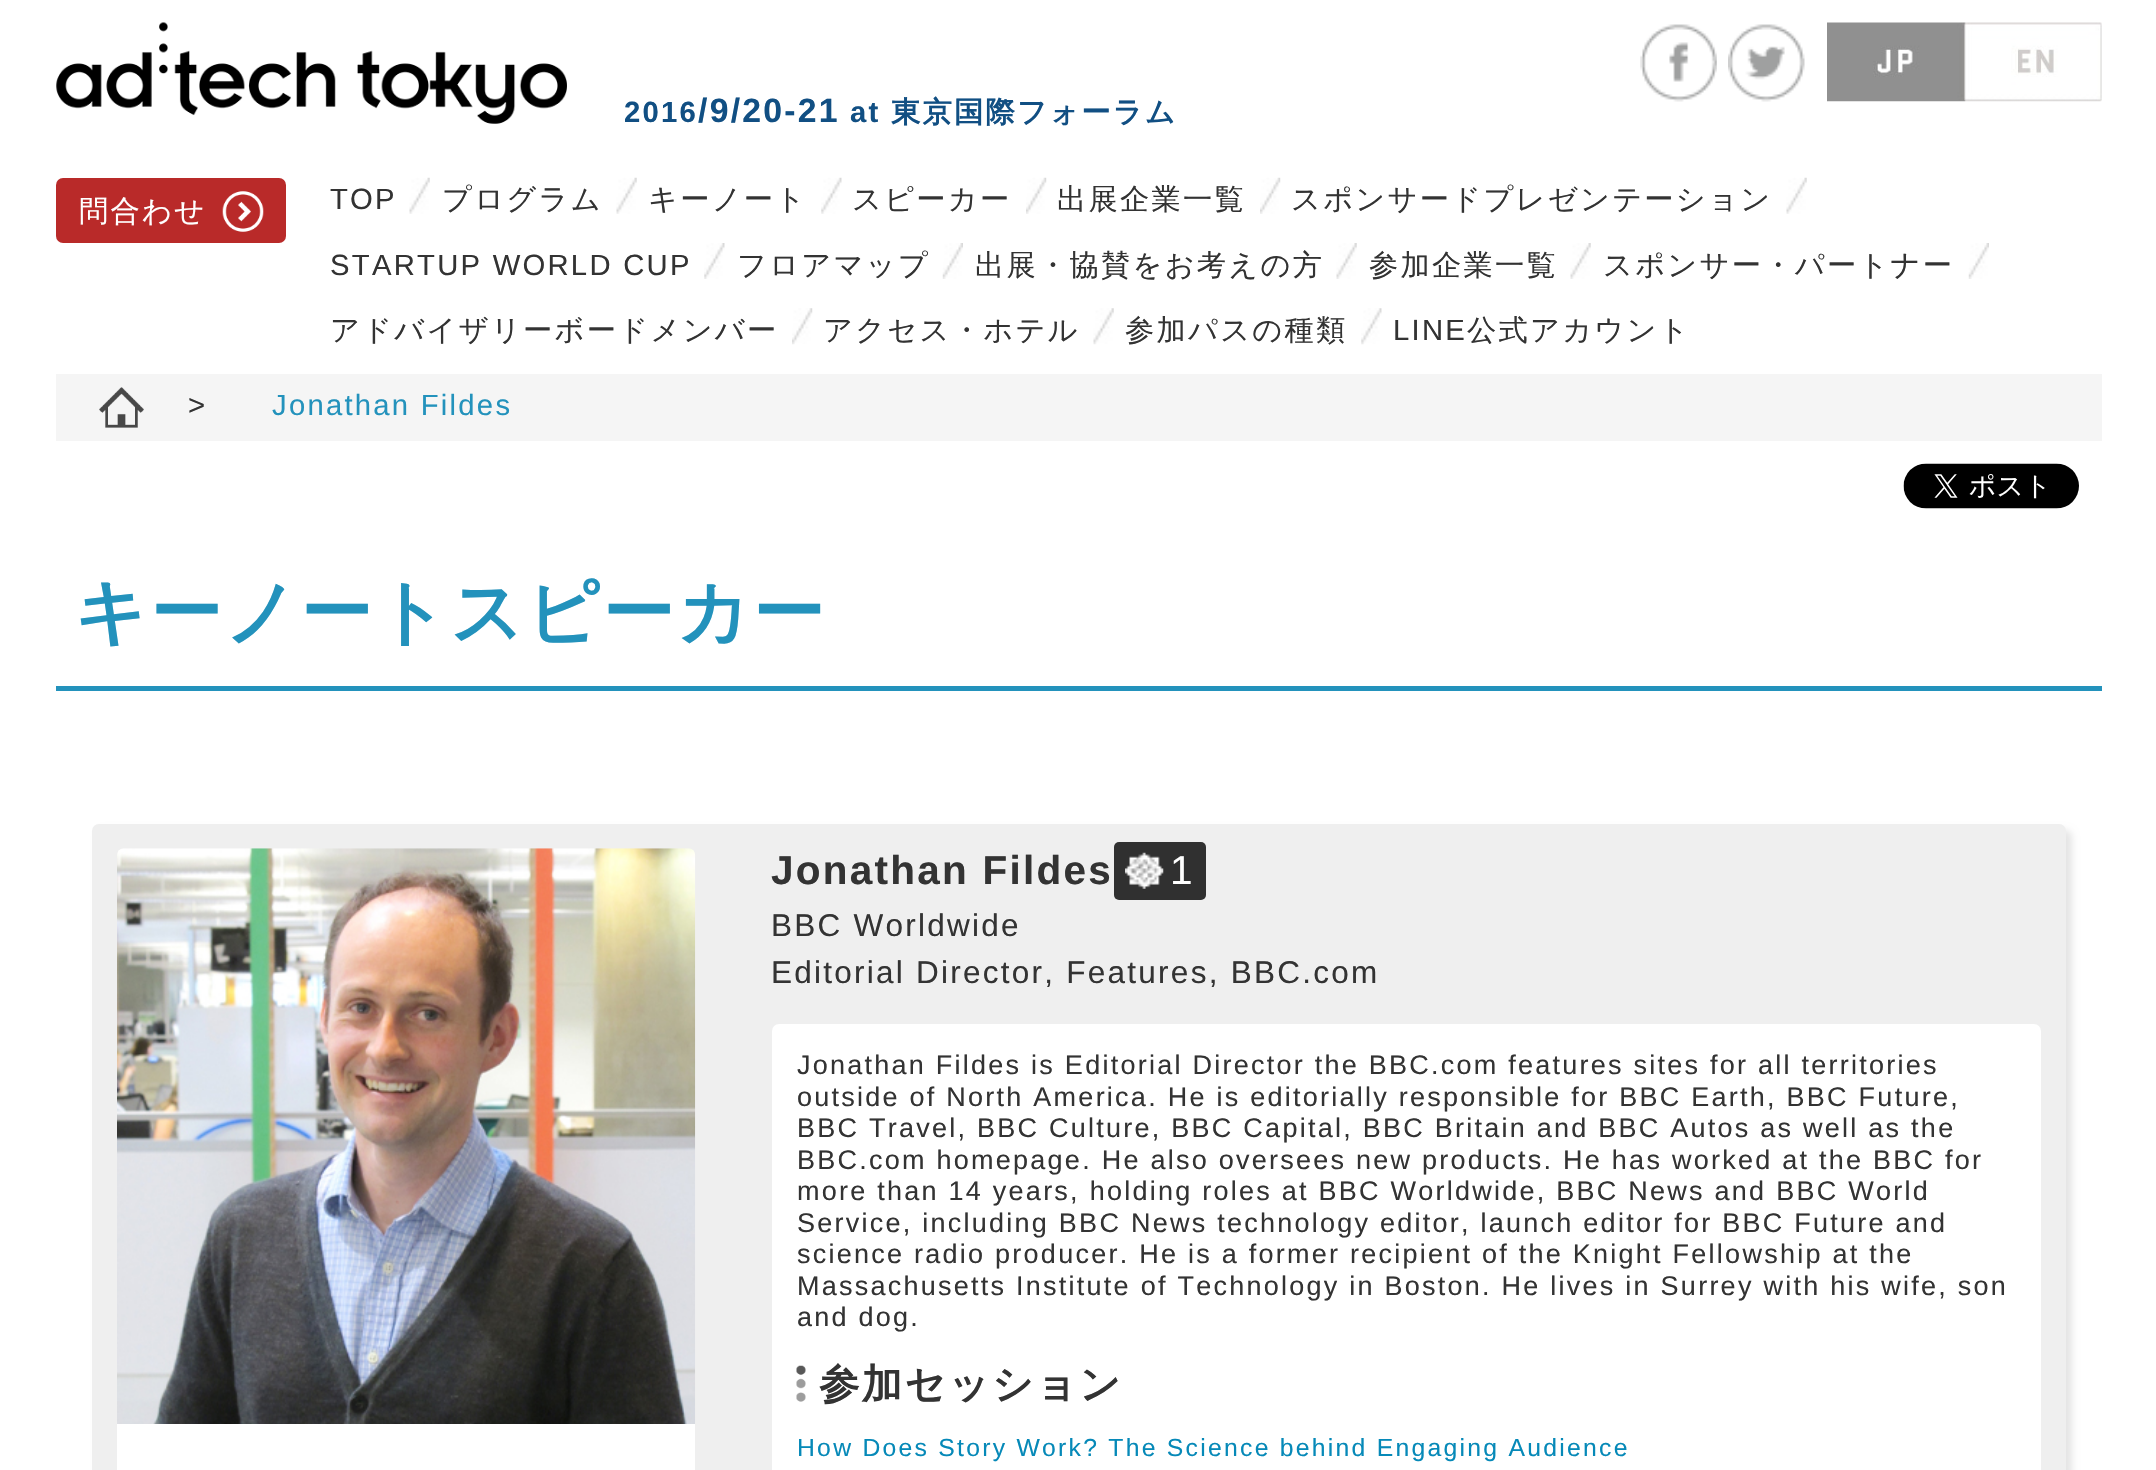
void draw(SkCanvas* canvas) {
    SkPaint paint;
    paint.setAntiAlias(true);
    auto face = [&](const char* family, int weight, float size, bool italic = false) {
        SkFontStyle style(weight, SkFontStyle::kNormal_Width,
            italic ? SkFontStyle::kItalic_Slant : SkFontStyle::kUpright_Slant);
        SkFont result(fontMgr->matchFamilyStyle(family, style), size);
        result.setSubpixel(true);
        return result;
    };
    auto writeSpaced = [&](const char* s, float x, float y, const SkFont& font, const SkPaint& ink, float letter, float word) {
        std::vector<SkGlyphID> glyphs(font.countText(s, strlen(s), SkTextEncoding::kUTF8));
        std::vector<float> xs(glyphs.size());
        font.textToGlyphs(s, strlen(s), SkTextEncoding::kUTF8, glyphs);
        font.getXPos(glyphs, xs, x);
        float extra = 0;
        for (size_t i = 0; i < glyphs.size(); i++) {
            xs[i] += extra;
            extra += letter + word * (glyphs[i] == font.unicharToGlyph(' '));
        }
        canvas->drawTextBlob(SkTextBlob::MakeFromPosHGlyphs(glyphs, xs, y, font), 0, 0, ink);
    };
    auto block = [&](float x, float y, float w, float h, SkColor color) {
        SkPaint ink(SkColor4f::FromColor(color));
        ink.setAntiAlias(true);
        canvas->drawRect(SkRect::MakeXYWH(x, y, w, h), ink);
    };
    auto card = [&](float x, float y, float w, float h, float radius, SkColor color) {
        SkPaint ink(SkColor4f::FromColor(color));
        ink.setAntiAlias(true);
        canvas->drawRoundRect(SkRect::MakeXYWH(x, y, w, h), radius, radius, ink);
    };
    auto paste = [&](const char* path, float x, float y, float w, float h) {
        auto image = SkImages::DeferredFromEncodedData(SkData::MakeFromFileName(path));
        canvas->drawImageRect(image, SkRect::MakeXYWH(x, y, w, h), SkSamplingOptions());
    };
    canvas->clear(SK_ColorWHITE);
    paste("pic1.png", 56, 22, 511, 102);
    paste("pic2.png", 1640, 24, 77, 78);
    paste("pic3.png", 1728, 24, 77, 78);
    paste("pic4.png", 1827, 22, 275, 80);
    auto kFont1 = face("Liberation Sans", 700, 29.25f);
    paint.setColor(SkColorSetRGB(17, 79, 131));
    writeSpaced("2016", 624, 122, kFont1, paint, 2.25f, 0);
    auto kFont2 = face("Liberation Sans", 700, 33.75f);
    writeSpaced("/9/20-21", 698, 122, kFont2, paint, 2.25f, 0);
    writeSpaced("at", 850, 122, kFont1, paint, 2.25f, 0);
    auto kFont3 = face("WenQuanYi Zen Hei", 700, 29.25f);
    writeSpaced("東京国際フォーラム", 891, 122, kFont3, paint, 2.25f, 0);
    card(56, 178, 230, 65, 7, SkColorSetRGB(185, 42, 41));
    paste("pic5.png", 222, 191, 42, 41);
    auto kFont4 = face("WenQuanYi Zen Hei", 500, 29.25f);
    paint.setColor(SK_ColorWHITE);
    writeSpaced("問合わせ", 79, 221, kFont4, paint, 2.25f, 0);
    paste("pic6.png", 409, 177, 21, 37);
    auto kFont5 = face("Liberation Sans", 400, 29.25f);
    paint.setColor(SkColorSetRGB(51, 51, 51));
    writeSpaced("TOP", 330, 209, kFont5, paint, 2.25f, 0);
    paste("pic7.png", 616, 177, 21, 37);
    writeSpaced("プログラム", 442, 209, kFont4, paint, 2.25f, 0);
    paste("pic8.png", 821, 177, 21, 37);
    writeSpaced("キーノート", 648, 209, kFont4, paint, 2.25f, 0);
    paste("pic9.png", 1026, 177, 21, 37);
    writeSpaced("スピーカー", 852, 209, kFont4, paint, 2.25f, 0);
    paste("pic10.png", 1260, 177, 21, 37);
    writeSpaced("出展企業一覧", 1057, 209, kFont4, paint, 2.25f, 0);
    paste("pic7.png", 1786, 177, 21, 37);
    writeSpaced("スポンサードプレゼンテーション", 1291, 209, kFont4, paint, 2.25f, 0);
    paste("pic11.png", 704, 243, 21, 36);
    writeSpaced("STARTUP WORLD CUP", 330, 275, kFont5, paint, 2.25f, 0);
    paste("pic12.png", 942, 243, 21, 36);
    writeSpaced("フロアマップ", 737, 275, kFont4, paint, 2.25f, 0);
    paste("pic13.png", 1336, 243, 21, 36);
    writeSpaced("出展・協賛をお考えの方", 975, 275, kFont4, paint, 2.25f, 0);
    paste("pic13.png", 1570, 243, 21, 36);
    writeSpaced("参加企業一覧", 1369, 275, kFont4, paint, 2.25f, 0);
    paste("pic14.png", 1968, 243, 21, 36);
    writeSpaced("スポンサー・パートナー", 1603, 275, kFont4, paint, 2.25f, 0);
    paste("pic15.png", 792, 308, 21, 37);
    writeSpaced("アドバイザリーボードメンバー", 330, 340, kFont4, paint, 2.25f, 0);
    paste("pic16.png", 1093, 308, 21, 37);
    writeSpaced("アクセス・ホテル", 823, 340, kFont4, paint, 2.25f, 0);
    paste("pic17.png", 1361, 308, 21, 37);
    writeSpaced("参加パスの種類", 1125, 340, kFont4, paint, 2.25f, 0);
    writeSpaced("LINE", 1393, 340, kFont5, paint, 2.25f, 0);
    writeSpaced("公式アカウント", 1467, 340, kFont4, paint, 2.25f, 0);
    block(56, 374, 2046, 67, SkColorSetRGB(245, 245, 245));
    paste("pic18.png", 99, 387, 45, 41);
    writeSpaced(">", 188, 415, kFont5, paint, 2.25f, 0);
    paint.setColor(SkColorSetRGB(35, 146, 188));
    writeSpaced("Jonathan Fildes", 272, 415, kFont5, paint, 2.25f, 0);
    paste("pic19.png", 1903, 463, 176, 46);
    block(56, 686, 2046, 5, SkColorSetRGB(35, 146, 188));
    auto kFont6 = face("WenQuanYi Zen Hei", 700, 72);
    writeSpaced("キーノートスピーカー", 74, 637, kFont6, paint, 2.25f, 0);
    paint.setColor(SkColorSetARGB(26, 0, 0, 0));
    paint.setMaskFilter(SkMaskFilter::MakeBlur(kNormal_SkBlurStyle, 3.5f));
    canvas->drawRoundRect(SkRect::MakeXYWH(99, 830, 1973, 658), 7, 7, paint);
    paint.setMaskFilter(nullptr);
    card(92, 824, 1974, 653, 7, SkColorSetRGB(239, 239, 239));
    paste("pic20.png", 117, 848, 579, 576);
    block(117, 1424, 578, 46, SK_ColorWHITE);
    auto kFont7 = face("Liberation Sans", 700, 40.5f);
    paint.setColor(SkColorSetRGB(51, 51, 51));
    writeSpaced("Jonathan Fildes", 771, 884, kFont7, paint, 2.25f, 0);
    card(1114, 842, 92, 58, 5, SkColorSetRGB(48, 48, 48));
    paste("pic21.png", 1125, 852, 39, 37);
    auto kFont8 = face("Liberation Sans", 400, 40.5f);
    paint.setColor(SK_ColorWHITE);
    writeSpaced("1", 1170, 884, kFont8, paint, 2.25f, 0);
    auto kFont9 = face("Liberation Sans", 400, 31.5f);
    paint.setColor(SkColorSetRGB(51, 51, 51));
    writeSpaced("BBC Worldwide", 771, 936, kFont9, paint, 2.25f, 0);
    writeSpaced("Editorial Director, Features, BBC.com", 771, 983, kFont9, paint, 2.25f, 0);
    card(772, 1024, 1269, 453, 7, SK_ColorWHITE);
    auto kFont10 = face("Liberation Sans", 400, 27);
    writeSpaced("Jonathan Fildes is Editorial Director the BBC.com features sites for all territories", 797, 1074, kFont10, paint, 2.25f, 0);
    writeSpaced("outside of North America. He is editorially responsible for BBC Earth, BBC Future,", 797, 1106, kFont10, paint, 2.25f, 0);
    writeSpaced("BBC Travel, BBC Culture, BBC Capital, BBC Britain and BBC Autos as well as the", 797, 1137, kFont10, paint, 2.25f, 0);
    writeSpaced("BBC.com homepage. He also oversees new products. He has worked at the BBC for", 797, 1169, kFont10, paint, 2.25f, 0);
    writeSpaced("more than 14 years, holding roles at BBC Worldwide, BBC News and BBC World", 797, 1200, kFont10, paint, 2.25f, 0);
    writeSpaced("Service, including BBC News technology editor, launch editor for BBC Future and", 797, 1232, kFont10, paint, 2.25f, 0);
    writeSpaced("science radio producer. He is a former recipient of the Knight Fellowship at the", 797, 1263, kFont10, paint, 2.25f, 0);
    writeSpaced("Massachusetts Institute of Technology in Boston. He lives in Surrey with his wife, son", 797, 1295, kFont10, paint, 2.25f, 0);
    writeSpaced("and dog.", 797, 1326, kFont10, paint, 2.25f, 0);
    paste("pic22.png", 796, 1365, 10, 37);
    auto kFont11 = face("WenQuanYi Zen Hei", 700, 40.5f);
    writeSpaced("参加セッション", 819, 1398, kFont11, paint, 2.25f, 0);
    auto kFont12 = face("Liberation Sans", 400, 24.75f);
    paint.setColor(SkColorSetRGB(6, 137, 184));
    writeSpaced("How Does Story Work? The Science behind Engaging Audience", 797, 1456, kFont12, paint, 2.25f, 0);
}
